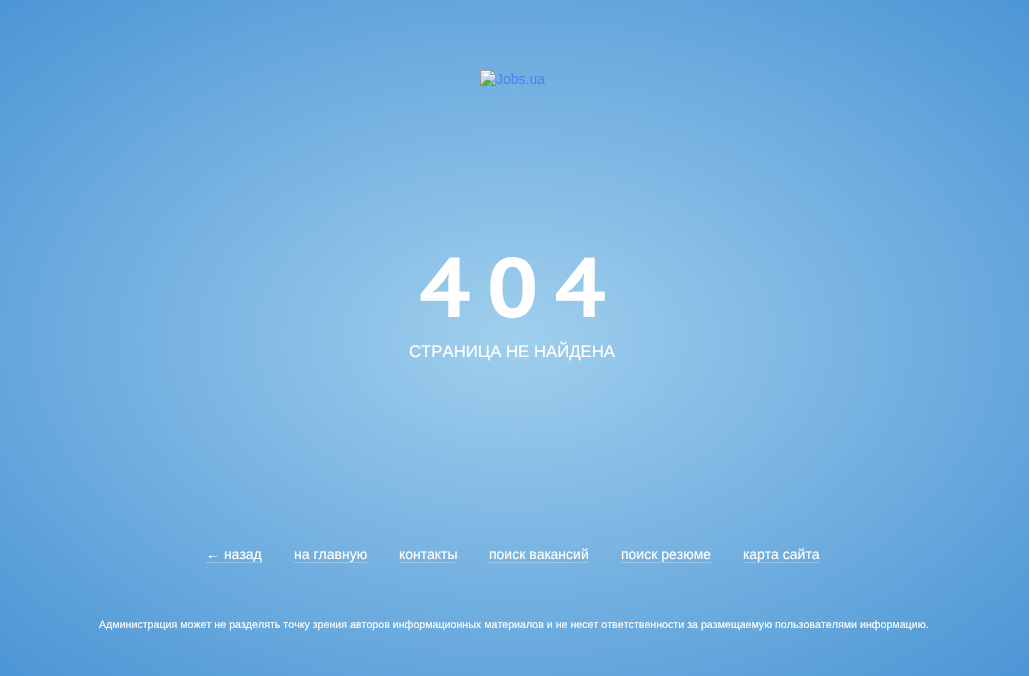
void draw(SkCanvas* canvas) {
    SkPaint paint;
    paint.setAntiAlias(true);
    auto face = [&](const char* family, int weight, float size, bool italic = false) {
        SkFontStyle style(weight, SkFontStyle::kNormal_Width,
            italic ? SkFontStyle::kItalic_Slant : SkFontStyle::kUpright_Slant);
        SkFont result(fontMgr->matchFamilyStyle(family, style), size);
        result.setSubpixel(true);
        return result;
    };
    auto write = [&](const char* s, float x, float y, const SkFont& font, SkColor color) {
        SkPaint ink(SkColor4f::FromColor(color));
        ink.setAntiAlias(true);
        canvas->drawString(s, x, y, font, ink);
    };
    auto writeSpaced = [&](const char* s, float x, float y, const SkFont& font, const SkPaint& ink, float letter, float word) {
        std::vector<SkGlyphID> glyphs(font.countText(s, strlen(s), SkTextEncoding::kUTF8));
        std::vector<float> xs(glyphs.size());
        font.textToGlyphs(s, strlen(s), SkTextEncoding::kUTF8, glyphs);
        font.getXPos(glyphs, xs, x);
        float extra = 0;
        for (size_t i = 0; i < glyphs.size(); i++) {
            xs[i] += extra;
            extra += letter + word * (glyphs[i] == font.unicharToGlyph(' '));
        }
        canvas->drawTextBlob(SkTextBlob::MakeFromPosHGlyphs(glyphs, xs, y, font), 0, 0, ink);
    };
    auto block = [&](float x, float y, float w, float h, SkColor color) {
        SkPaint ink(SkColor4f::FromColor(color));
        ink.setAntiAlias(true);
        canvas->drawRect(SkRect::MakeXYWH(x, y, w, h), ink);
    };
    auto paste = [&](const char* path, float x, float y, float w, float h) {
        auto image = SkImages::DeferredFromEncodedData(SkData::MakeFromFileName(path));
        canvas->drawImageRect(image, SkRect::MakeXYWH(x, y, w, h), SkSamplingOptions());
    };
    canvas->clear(SK_ColorWHITE);
    {
        const SkColor colors[] = {SkColorSetRGB(160, 207, 237), SkColorSetRGB(76, 149, 213)};
        const float stops[] = {0, 1};
        SkMatrix m = SkMatrix::Translate(515, 338).preScale(728, 478);
        paint.setShader(SkGradientShader::MakeRadial({0, 0}, 1, colors, stops, 2, SkTileMode::kClamp, 0, &m));
        paint.setAlpha(255);
    }
    canvas->drawRect(SkRect::MakeXYWH(0, 0, 1029, 676), paint);
    {
        const SkColor colors[] = {SkColorSetRGB(184, 219, 242), SkColorSetRGB(121, 176, 224)};
        const float stops[] = {0, 1};
        SkMatrix m = SkMatrix::Translate(515, 338).preScale(728, 478);
        paint.setShader(SkGradientShader::MakeRadial({0, 0}, 1, colors, stops, 2, SkTileMode::kClamp, 0, &m));
        paint.setAlpha(255);
    }
    canvas->drawRect(SkRect::MakeXYWH(743, 562, 76, 1), paint);
    canvas->drawRect(SkRect::MakeXYWH(621, 562, 90, 1), paint);
    canvas->drawRect(SkRect::MakeXYWH(294, 562, 73, 1), paint);
    canvas->drawRect(SkRect::MakeXYWH(206, 562, 56, 1), paint);
    paste("pic1.png", 480, 70, 65, 16);
    auto kFont1 = face("PT Sans Caption", 700, 84);
    paint.setShader(nullptr);
    paint.setColor(SkColorSetRGB(254, 254, 254));
    writeSpaced("404", 420, 317, kFont1, paint, 18, 0);
    auto kFont2 = face("Liberation Sans", 400, 16.75f);
    write("СТРАНИЦА НЕ НАЙДЕНА", 409, 357, kFont2, SkColorSetRGB(254, 254, 254));
    auto kFont3 = face("Liberation Sans", 400, 14);
    write("← назад", 206, 559, kFont3, SkColorSetRGB(254, 254, 254));
    write("на главную", 294, 559, kFont3, SkColorSetRGB(254, 254, 254));
    write("контакты", 399, 559, kFont3, SkColorSetRGB(254, 254, 254));
    block(399, 562, 58, 1, SkColorSetRGB(153, 198, 233));
    write("поиск вакансий", 489, 559, kFont3, SkColorSetRGB(254, 254, 254));
    block(489, 562, 100, 1, SkColorSetRGB(154, 199, 233));
    write("поиск резюме", 621, 559, kFont3, SkColorSetRGB(254, 254, 254));
    write("карта сайта", 743, 559, kFont3, SkColorSetRGB(254, 254, 254));
    auto kFont4 = face("Liberation Sans", 400, 10.65f);
    write("Администрация может не разделять точку зрения авторов информационных материалов и не несет ответственности за размещаемую пользователями информацию.", 99, 628, kFont4, SkColorSetRGB(254, 254, 254));
}
